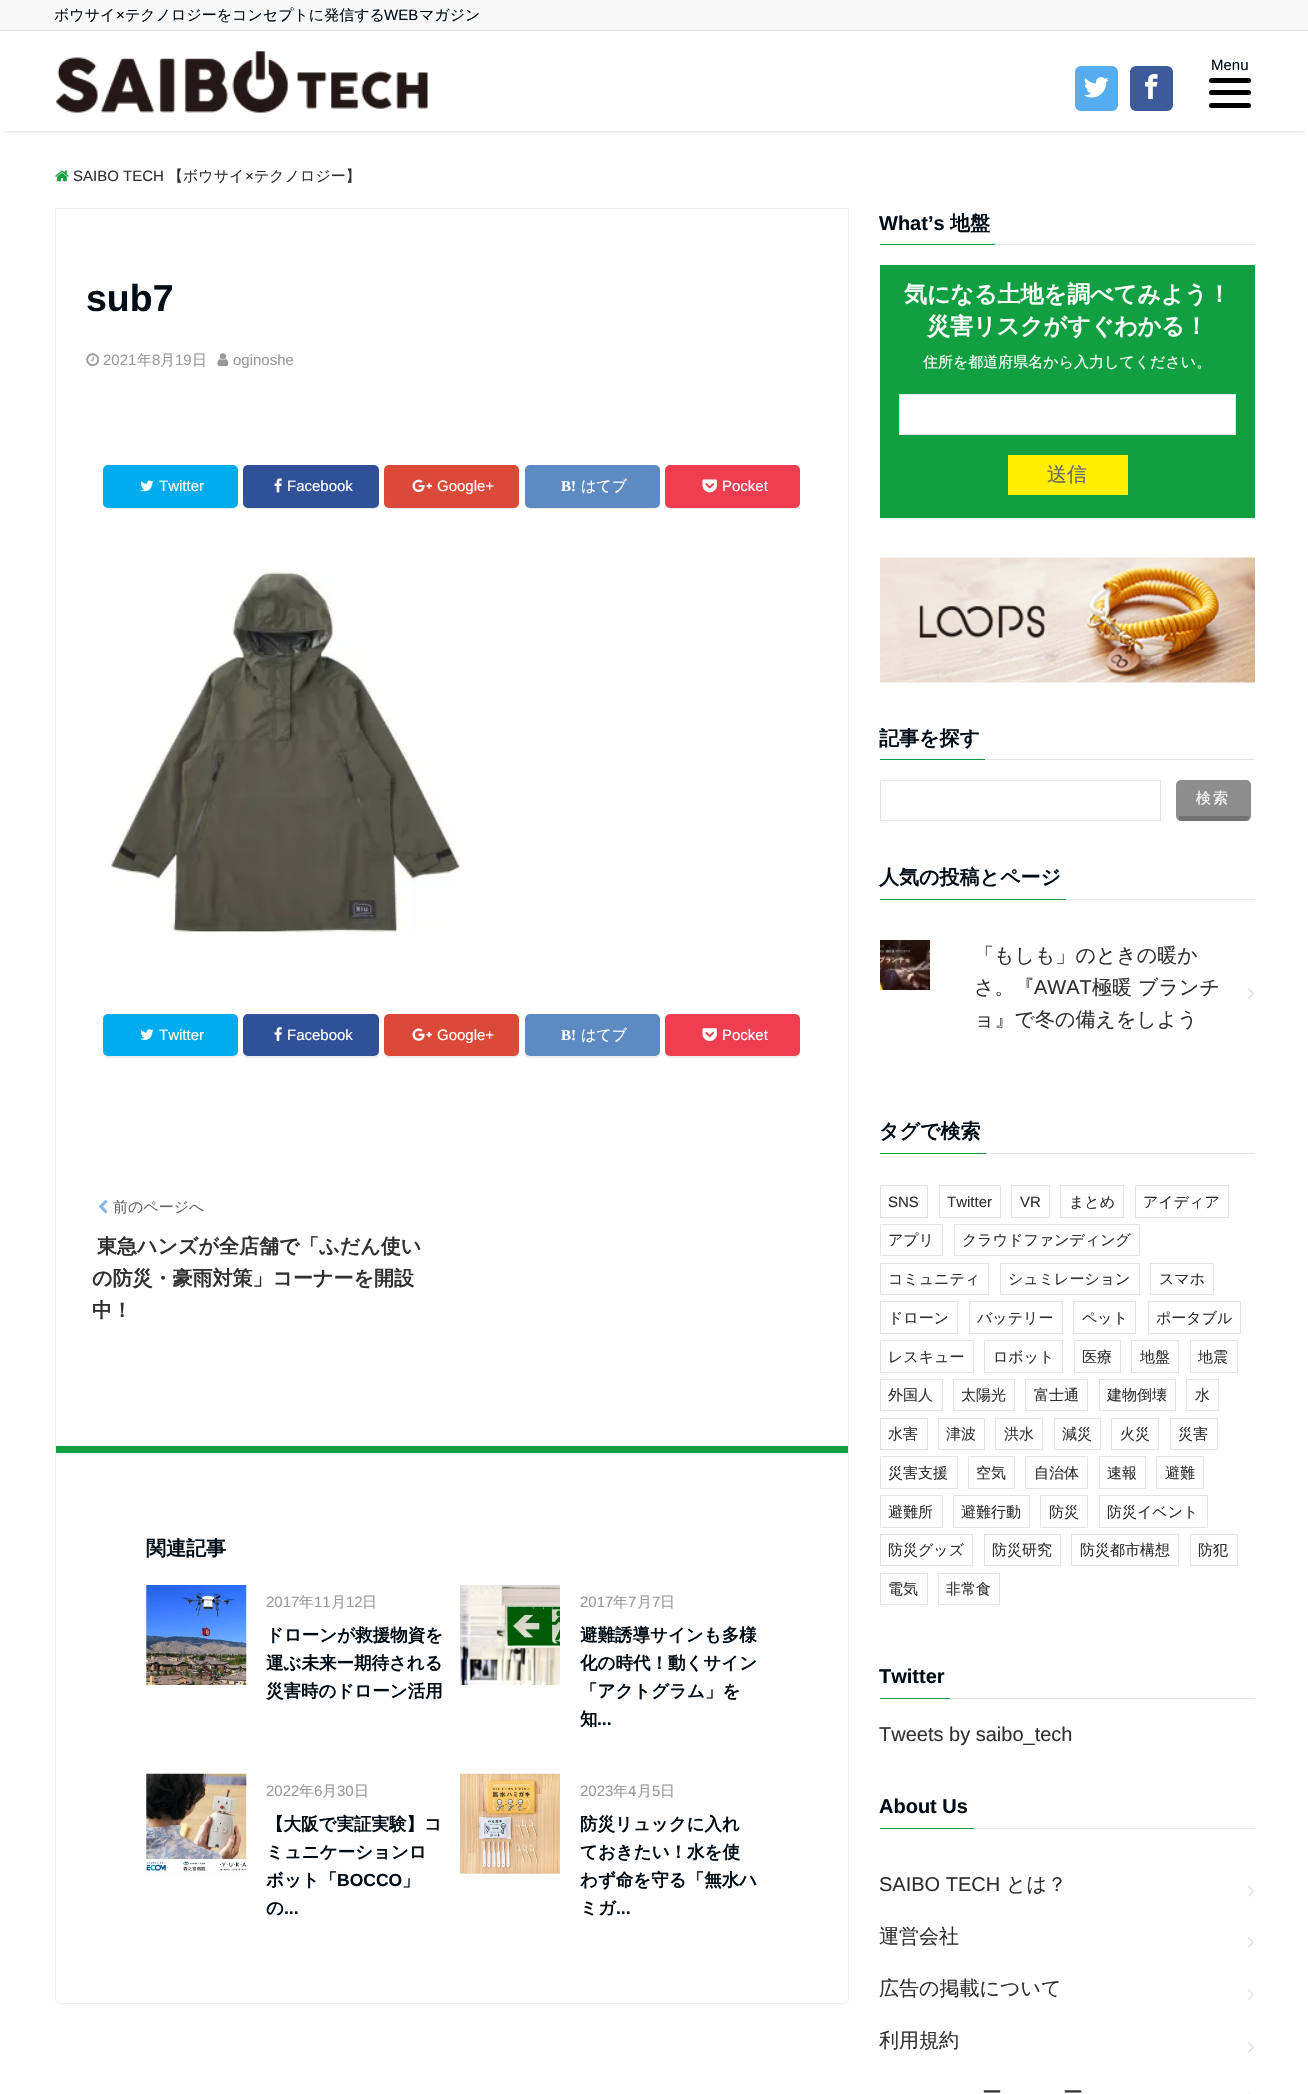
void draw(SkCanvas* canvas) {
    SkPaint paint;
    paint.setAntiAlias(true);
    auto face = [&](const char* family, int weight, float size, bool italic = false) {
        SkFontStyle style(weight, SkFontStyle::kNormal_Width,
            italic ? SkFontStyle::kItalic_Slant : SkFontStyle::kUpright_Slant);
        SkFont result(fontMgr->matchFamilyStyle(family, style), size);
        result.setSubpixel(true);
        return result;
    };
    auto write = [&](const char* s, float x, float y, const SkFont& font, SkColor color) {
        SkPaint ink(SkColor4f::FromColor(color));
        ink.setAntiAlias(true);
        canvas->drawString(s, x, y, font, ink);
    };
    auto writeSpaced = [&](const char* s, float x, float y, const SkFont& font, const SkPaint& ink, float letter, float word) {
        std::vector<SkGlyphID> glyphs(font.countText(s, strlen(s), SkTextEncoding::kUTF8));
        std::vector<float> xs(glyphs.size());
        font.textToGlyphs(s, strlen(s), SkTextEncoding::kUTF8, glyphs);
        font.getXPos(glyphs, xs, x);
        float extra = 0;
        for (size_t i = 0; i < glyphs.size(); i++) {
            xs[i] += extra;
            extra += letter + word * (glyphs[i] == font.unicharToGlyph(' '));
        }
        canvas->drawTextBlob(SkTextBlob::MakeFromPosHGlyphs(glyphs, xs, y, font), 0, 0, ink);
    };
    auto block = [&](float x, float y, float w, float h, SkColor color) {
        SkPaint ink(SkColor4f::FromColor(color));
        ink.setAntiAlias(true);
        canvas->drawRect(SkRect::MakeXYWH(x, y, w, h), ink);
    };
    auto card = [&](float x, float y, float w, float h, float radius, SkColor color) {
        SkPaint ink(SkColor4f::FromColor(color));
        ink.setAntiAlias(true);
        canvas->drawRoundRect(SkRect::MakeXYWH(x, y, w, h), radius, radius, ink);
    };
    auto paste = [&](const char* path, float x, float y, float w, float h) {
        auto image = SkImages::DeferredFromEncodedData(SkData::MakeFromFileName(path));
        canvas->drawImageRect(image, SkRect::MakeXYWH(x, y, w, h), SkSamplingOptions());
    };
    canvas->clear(SK_ColorWHITE);
    block(0, 0, 1308, 30, SkColorSetRGB(248, 248, 248));
    block(0, 30, 1308, 1, SkColorSetRGB(226, 229, 232));
    auto kFont1 = face("WenQuanYi Zen Hei", 500, 15);
    write("ボウサイ", 54, 20, kFont1, SkColorSetRGB(0, 12, 21));
    auto kFont2 = face("Liberation Sans", 400, 15);
    write("×", 116, 20, kFont2, SkColorSetRGB(0, 12, 21));
    write("テクノロジーをコンセプトに発信する", 125, 20, kFont1, SkColorSetRGB(0, 12, 21));
    write("WEB", 384, 20, kFont2, SkColorSetRGB(0, 12, 21));
    write("マガジン", 419, 20, kFont1, SkColorSetRGB(0, 12, 21));
    canvas->save();
    canvas->clipRect(SkRect::MakeXYWH(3, 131, 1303, 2));
    paint.setColor(SkColorSetARGB(77, 0, 0, 0));
    paint.setMaskFilter(SkMaskFilter::MakeBlur(kNormal_SkBlurStyle, 2));
    canvas->drawRect(SkRect::MakeXYWH(4, 38, 1301, 92), paint);
    paint.setMaskFilter(nullptr);
    canvas->restore();
    paste("pic1.png", 56, 51, 372, 62);
    card(1075, 66, 43, 45, 6, SkColorSetRGB(85, 172, 238));
    paste("pic2.png", 1084, 77, 25, 21);
    card(1130, 66, 43, 45, 6, SkColorSetRGB(60, 90, 153));
    paste("pic3.png", 1145, 74, 13, 26);
    write("Menu", 1211, 70, kFont2, SkColorSetRGB(0, 12, 21));
    card(1209, 78, 42, 5, 2.5f, SK_ColorBLACK);
    card(1209, 90, 42, 5, 2.5f, SK_ColorBLACK);
    card(1209, 103, 42, 5, 2.5f, SK_ColorBLACK);
    paste("pic4.png", 55, 170, 14, 12);
    write("SAIBO TECH", 73, 181, kFont2, SkColorSetRGB(48, 48, 48));
    write("【ボウサイ", 168, 181, kFont1, SkColorSetRGB(48, 48, 48));
    write("×", 245, 181, kFont2, SkColorSetRGB(48, 48, 48));
    write("テクノロジー】", 254, 181, kFont1, SkColorSetRGB(48, 48, 48));
    paint.setStyle(SkPaint::kStroke_Style);
    paint.setStrokeWidth(1);
    paint.setColor(SkColorSetRGB(235, 237, 240));
    canvas->drawPath(SkPathBuilder().moveTo(55.5f, 208.5f).lineTo(848.5f, 208.5f).lineTo(848.5f, 1999).cubicTo(848.5f, 2001.5f, 846.5f, 2003.5f, 844, 2003.5f).lineTo(60, 2003.5f).cubicTo(57.5f, 2003.5f, 55.5f, 2001.5f, 55.5f, 1999).close().detach(), paint);
    auto kFont3 = face("Liberation Sans", 700, 37.5f);
    write("sub7", 86, 311, kFont3, SkColorSetRGB(0, 12, 21));
    paste("pic5.png", 86, 353, 14, 13);
    write("2021", 103, 365, kFont2, SkColorSetRGB(153, 153, 153));
    write("年", 137, 365, kFont1, SkColorSetRGB(153, 153, 153));
    write("8", 152, 365, kFont2, SkColorSetRGB(153, 153, 153));
    write("月", 160, 365, kFont1, SkColorSetRGB(153, 153, 153));
    write("19", 175, 365, kFont2, SkColorSetRGB(153, 153, 153));
    write("日", 192, 365, kFont1, SkColorSetRGB(153, 153, 153));
    paste("pic6.png", 217, 353, 12, 14);
    write("oginoshe", 233, 365, kFont2, SkColorSetRGB(153, 153, 153));
    paint.setStyle(SkPaint::kFill_Style);
    paint.setColor(SkColorSetARGB(20, 0, 0, 0));
    paint.setMaskFilter(SkMaskFilter::MakeBlur(kNormal_SkBlurStyle, 0.5f));
    canvas->drawRoundRect(SkRect::MakeXYWH(103, 466, 135, 43), 5, 5, paint);
    paint.setMaskFilter(nullptr);
    card(103, 465, 135, 43, 5, SkColorSetRGB(0, 172, 238));
    paste("pic7.png", 140, 480, 14, 12);
    write("Twitter", 159, 491, kFont2, SK_ColorWHITE);
    paint.setMaskFilter(SkMaskFilter::MakeBlur(kNormal_SkBlurStyle, 0.5f));
    canvas->drawRoundRect(SkRect::MakeXYWH(243, 466, 136, 43), 5, 5, paint);
    paint.setMaskFilter(nullptr);
    card(243, 465, 136, 43, 5, SkColorSetRGB(48, 80, 151));
    paste("pic8.png", 274, 478, 8, 15);
    write("Facebook", 287, 491, kFont2, SK_ColorWHITE);
    paint.setMaskFilter(SkMaskFilter::MakeBlur(kNormal_SkBlurStyle, 0.5f));
    canvas->drawRoundRect(SkRect::MakeXYWH(384, 466, 135, 43), 5, 5, paint);
    paint.setMaskFilter(nullptr);
    card(384, 465, 135, 43, 5, SkColorSetRGB(219, 74, 57));
    paste("pic9.png", 412, 479, 20, 13);
    write("Google+", 437, 491, kFont2, SK_ColorWHITE);
    paint.setMaskFilter(SkMaskFilter::MakeBlur(kNormal_SkBlurStyle, 0.5f));
    canvas->drawRoundRect(SkRect::MakeXYWH(525, 466, 135, 43), 5, 5, paint);
    paint.setMaskFilter(nullptr);
    card(525, 465, 135, 43, 5, SkColorSetRGB(93, 138, 193));
    auto kFont4 = face("Liberation Serif", 700, 15);
    write("B!", 561, 491, kFont4, SK_ColorWHITE);
    write("はてブ", 581, 491, kFont1, SK_ColorWHITE);
    paint.setMaskFilter(SkMaskFilter::MakeBlur(kNormal_SkBlurStyle, 0.5f));
    canvas->drawRoundRect(SkRect::MakeXYWH(665, 466, 135, 43), 5, 5, paint);
    paint.setMaskFilter(nullptr);
    card(665, 465, 135, 43, 5, SkColorSetRGB(240, 62, 81));
    paste("pic10.png", 702, 479, 15, 14);
    write("Pocket", 722, 491, kFont2, SK_ColorWHITE);
    paste("pic11.png", 111, 572, 350, 362);
    paint.setMaskFilter(SkMaskFilter::MakeBlur(kNormal_SkBlurStyle, 0.5f));
    canvas->drawRoundRect(SkRect::MakeXYWH(103, 1015, 135, 43), 5, 5, paint);
    paint.setMaskFilter(nullptr);
    card(103, 1014, 135, 42, 5, SkColorSetRGB(0, 172, 238));
    paste("pic12.png", 140, 1029, 14, 11);
    write("Twitter", 159, 1040, kFont2, SK_ColorWHITE);
    paint.setMaskFilter(SkMaskFilter::MakeBlur(kNormal_SkBlurStyle, 0.5f));
    canvas->drawRoundRect(SkRect::MakeXYWH(243, 1015, 136, 43), 5, 5, paint);
    paint.setMaskFilter(nullptr);
    card(243, 1014, 136, 42, 5, SkColorSetRGB(48, 80, 151));
    paste("pic13.png", 274, 1027, 8, 15);
    write("Facebook", 287, 1040, kFont2, SK_ColorWHITE);
    paint.setMaskFilter(SkMaskFilter::MakeBlur(kNormal_SkBlurStyle, 0.5f));
    canvas->drawRoundRect(SkRect::MakeXYWH(384, 1015, 135, 43), 5, 5, paint);
    paint.setMaskFilter(nullptr);
    card(384, 1014, 135, 42, 5, SkColorSetRGB(219, 74, 57));
    paste("pic14.png", 412, 1028, 20, 13);
    write("Google+", 437, 1040, kFont2, SK_ColorWHITE);
    paint.setMaskFilter(SkMaskFilter::MakeBlur(kNormal_SkBlurStyle, 0.5f));
    canvas->drawRoundRect(SkRect::MakeXYWH(525, 1015, 135, 43), 5, 5, paint);
    paint.setMaskFilter(nullptr);
    card(525, 1014, 135, 42, 5, SkColorSetRGB(93, 138, 193));
    write("B!", 561, 1040, kFont4, SK_ColorWHITE);
    write("はてブ", 581, 1040, kFont1, SK_ColorWHITE);
    paint.setMaskFilter(SkMaskFilter::MakeBlur(kNormal_SkBlurStyle, 0.5f));
    canvas->drawRoundRect(SkRect::MakeXYWH(665, 1015, 135, 43), 5, 5, paint);
    paint.setMaskFilter(nullptr);
    card(665, 1014, 135, 42, 5, SkColorSetRGB(240, 62, 81));
    paste("pic15.png", 702, 1028, 15, 14);
    write("Pocket", 722, 1040, kFont2, SK_ColorWHITE);
    paste("pic16.png", 98, 1199, 10, 15);
    write("前のページへ", 113, 1212, kFont1, SkColorSetRGB(102, 102, 102));
    auto kFont5 = face("WenQuanYi Zen Hei", 700, 20);
    write("東急ハンズが全店舗で「ふだん使い", 97, 1253, kFont5, SkColorSetRGB(48, 48, 48));
    write("の防災・豪雨対策」コーナーを開設", 92, 1285, kFont5, SkColorSetRGB(48, 48, 48));
    write("中！", 92, 1317, kFont5, SkColorSetRGB(48, 48, 48));
    block(56, 1446, 792, 7, SkColorSetRGB(17, 160, 65));
    write("関連記事", 146, 1555, kFont5, SkColorSetRGB(0, 12, 21));
    paste("pic17.png", 146, 1585, 101, 100);
    write("2017", 266, 1607, kFont2, SkColorSetRGB(153, 153, 153));
    write("年", 299, 1607, kFont1, SkColorSetRGB(153, 153, 153));
    write("11", 314, 1607, kFont2, SkColorSetRGB(153, 153, 153));
    write("月", 331, 1607, kFont1, SkColorSetRGB(153, 153, 153));
    write("12", 346, 1607, kFont2, SkColorSetRGB(153, 153, 153));
    write("日", 362, 1607, kFont1, SkColorSetRGB(153, 153, 153));
    auto kFont6 = face("WenQuanYi Zen Hei", 700, 17.5f);
    write("ドローンが救援物資を", 266, 1641, kFont6, SkColorSetRGB(0, 12, 21));
    write("運ぶ未来ー期待される", 266, 1669, kFont6, SkColorSetRGB(0, 12, 21));
    write("災害時のドローン活用", 266, 1697, kFont6, SkColorSetRGB(0, 12, 21));
    paste("pic18.png", 460, 1585, 100, 100);
    write("2017", 580, 1607, kFont2, SkColorSetRGB(153, 153, 153));
    write("年", 613, 1607, kFont1, SkColorSetRGB(153, 153, 153));
    write("7", 628, 1607, kFont2, SkColorSetRGB(153, 153, 153));
    write("月", 637, 1607, kFont1, SkColorSetRGB(153, 153, 153));
    write("7", 652, 1607, kFont2, SkColorSetRGB(153, 153, 153));
    write("日", 660, 1607, kFont1, SkColorSetRGB(153, 153, 153));
    write("避難誘導サインも多様", 580, 1641, kFont6, SkColorSetRGB(0, 12, 21));
    write("化の時代！動くサイン", 580, 1669, kFont6, SkColorSetRGB(0, 12, 21));
    write("「アクトグラム」を", 580, 1697, kFont6, SkColorSetRGB(0, 12, 21));
    write("知", 580, 1725, kFont6, SkColorSetRGB(0, 12, 21));
    auto kFont7 = face("Liberation Sans", 700, 17.5f);
    write("...", 597, 1725, kFont7, SkColorSetRGB(0, 12, 21));
    paste("pic19.png", 146, 1773, 101, 101);
    write("2022", 266, 1796, kFont2, SkColorSetRGB(153, 153, 153));
    write("年", 299, 1796, kFont1, SkColorSetRGB(153, 153, 153));
    write("6", 314, 1796, kFont2, SkColorSetRGB(153, 153, 153));
    write("月", 322, 1796, kFont1, SkColorSetRGB(153, 153, 153));
    write("30", 337, 1796, kFont2, SkColorSetRGB(153, 153, 153));
    write("日", 354, 1796, kFont1, SkColorSetRGB(153, 153, 153));
    write("【大阪で実証実験】コ", 266, 1830, kFont6, SkColorSetRGB(0, 12, 21));
    write("ミュニケーションロ", 266, 1858, kFont6, SkColorSetRGB(0, 12, 21));
    write("ボット「", 266, 1886, kFont6, SkColorSetRGB(0, 12, 21));
    write("BOCCO", 337, 1886, kFont7, SkColorSetRGB(0, 12, 21));
    write("」", 402, 1886, kFont6, SkColorSetRGB(0, 12, 21));
    write("の", 266, 1914, kFont6, SkColorSetRGB(0, 12, 21));
    write("...", 284, 1914, kFont7, SkColorSetRGB(0, 12, 21));
    paste("pic20.png", 460, 1773, 100, 101);
    write("2023", 580, 1796, kFont2, SkColorSetRGB(153, 153, 153));
    write("年", 613, 1796, kFont1, SkColorSetRGB(153, 153, 153));
    write("4", 628, 1796, kFont2, SkColorSetRGB(153, 153, 153));
    write("月", 637, 1796, kFont1, SkColorSetRGB(153, 153, 153));
    write("5", 652, 1796, kFont2, SkColorSetRGB(153, 153, 153));
    write("日", 660, 1796, kFont1, SkColorSetRGB(153, 153, 153));
    write("防災リュックに入れ", 580, 1830, kFont6, SkColorSetRGB(0, 12, 21));
    write("ておきたい！水を使", 580, 1858, kFont6, SkColorSetRGB(0, 12, 21));
    write("わず命を守る「無水ハ", 580, 1886, kFont6, SkColorSetRGB(0, 12, 21));
    write("ミガ", 580, 1914, kFont6, SkColorSetRGB(0, 12, 21));
    write("...", 616, 1914, kFont7, SkColorSetRGB(0, 12, 21));
    block(995, 244, 260, 1, SkColorSetRGB(226, 229, 232));
    block(880, 244, 115, 1, SkColorSetRGB(17, 160, 65));
    auto kFont8 = face("Liberation Sans", 700, 20);
    write("What’s", 879, 230, kFont8, SkColorSetRGB(0, 12, 21));
    write("地盤", 950, 230, kFont5, SkColorSetRGB(0, 12, 21));
    block(880, 265, 375, 253, SkColorSetRGB(17, 160, 65));
    auto kFont9 = face("WenQuanYi Zen Hei", 700, 23);
    write("気になる土地を調べてみよう！", 904, 302, kFont9, SK_ColorWHITE);
    write("災害リスクがすぐわかる！", 927, 334, kFont9, SK_ColorWHITE);
    write("住所を都道府県名から入力してください。", 923, 367, kFont1, SK_ColorWHITE);
    paint.setColor(SK_ColorWHITE);
    canvas->drawRect(SkRect::MakeXYWH(899.5f, 394.5f, 336, 40), paint);
    paint.setStyle(SkPaint::kStroke_Style);
    paint.setColor(SkColorSetRGB(226, 229, 232));
    canvas->drawRect(SkRect::MakeXYWH(899.5f, 394.5f, 336, 40), paint);
    block(1008, 455, 120, 40, SkColorSetRGB(255, 238, 0));
    auto kFont10 = face("WenQuanYi Zen Hei", 500, 20);
    write("送信", 1047, 481, kFont10, SkColorSetRGB(102, 102, 102));
    paste("pic21.png", 880, 557, 375, 126);
    block(985, 759, 270, 1, SkColorSetRGB(226, 229, 232));
    block(880, 759, 105, 1, SkColorSetRGB(17, 160, 65));
    write("記事を探す", 879, 745, kFont5, SkColorSetRGB(0, 12, 21));
    canvas->drawRect(SkRect::MakeXYWH(880.5f, 780.5f, 280, 40), paint);
    card(1176, 780, 75, 41, 5, SkColorSetRGB(142, 142, 142));
    block(1179, 816, 70, 5, SkColorSetARGB(51, 0, 0, 0));
    paint.setStyle(SkPaint::kFill_Style);
    paint.setColor(SK_ColorWHITE);
    writeSpaced("検索", 1196, 803, kFont1, paint, 2, 0);
    block(1066, 899, 189, 1, SkColorSetRGB(226, 229, 232));
    block(880, 899, 186, 1, SkColorSetRGB(17, 160, 65));
    write("人気の投稿とページ", 879, 884, kFont5, SkColorSetRGB(0, 12, 21));
    paste("pic22.png", 880, 940, 50, 50);
    paste("pic23.png", 1247, 988, 7, 11);
    write("「もしも」のときの暖か", 974, 962, kFont10, SkColorSetRGB(48, 48, 48));
    write("さ。『", 974, 994, kFont10, SkColorSetRGB(48, 48, 48));
    auto kFont11 = face("Liberation Sans", 400, 20);
    write("AWAT", 1034, 994, kFont11, SkColorSetRGB(48, 48, 48));
    write("極暖 ブランチ", 1092, 994, kFont10, SkColorSetRGB(48, 48, 48));
    paste("pic24.png", 1247, 988, 7, 11);
    write("ョ』で冬の備えをしよう", 974, 1026, kFont10, SkColorSetRGB(48, 48, 48));
    block(986, 1153, 269, 1, SkColorSetRGB(226, 229, 232));
    block(880, 1153, 106, 1, SkColorSetRGB(17, 160, 65));
    write("タグで検索", 879, 1138, kFont5, SkColorSetRGB(0, 12, 21));
    paint.setStyle(SkPaint::kStroke_Style);
    paint.setColor(SkColorSetRGB(226, 229, 232));
    canvas->drawRect(SkRect::MakeXYWH(880.5f, 1185.5f, 47, 32), paint);
    write("SNS", 888, 1207, kFont2, SkColorSetRGB(48, 48, 48));
    canvas->drawRect(SkRect::MakeXYWH(939.5f, 1185.5f, 61, 32), paint);
    write("Twitter", 947, 1207, kFont2, SkColorSetRGB(48, 48, 48));
    canvas->drawRect(SkRect::MakeXYWH(1011.5f, 1185.5f, 38, 32), paint);
    write("VR", 1020, 1207, kFont2, SkColorSetRGB(48, 48, 48));
    canvas->drawRect(SkRect::MakeXYWH(1060.5f, 1185.5f, 63, 32), paint);
    write("まとめ", 1069, 1207, kFont1, SkColorSetRGB(48, 48, 48));
    canvas->drawRect(SkRect::MakeXYWH(1135.5f, 1185.5f, 93, 32), paint);
    write("アイディア", 1143, 1207, kFont1, SkColorSetRGB(48, 48, 48));
    canvas->drawRect(SkRect::MakeXYWH(880.5f, 1224.5f, 62, 31), paint);
    write("アプリ", 888, 1245, kFont1, SkColorSetRGB(48, 48, 48));
    canvas->drawRect(SkRect::MakeXYWH(954.5f, 1224.5f, 185, 31), paint);
    write("クラウドファンディング", 962, 1245, kFont1, SkColorSetRGB(48, 48, 48));
    canvas->drawRect(SkRect::MakeXYWH(880.5f, 1263.5f, 108, 31), paint);
    write("コミュニティ", 888, 1284, kFont1, SkColorSetRGB(48, 48, 48));
    canvas->drawRect(SkRect::MakeXYWH(1000.5f, 1263.5f, 139, 31), paint);
    write("シュミレーション", 1008, 1284, kFont1, SkColorSetRGB(48, 48, 48));
    canvas->drawRect(SkRect::MakeXYWH(1150.5f, 1263.5f, 63, 31), paint);
    write("スマホ", 1159, 1284, kFont1, SkColorSetRGB(48, 48, 48));
    canvas->drawRect(SkRect::MakeXYWH(880.5f, 1301.5f, 77, 32), paint);
    write("ドローン", 888, 1323, kFont1, SkColorSetRGB(48, 48, 48));
    canvas->drawRect(SkRect::MakeXYWH(969.5f, 1301.5f, 93, 32), paint);
    write("バッテリー", 977, 1323, kFont1, SkColorSetRGB(48, 48, 48));
    canvas->drawRect(SkRect::MakeXYWH(1073.5f, 1301.5f, 62, 32), paint);
    write("ペット", 1082, 1323, kFont1, SkColorSetRGB(48, 48, 48));
    canvas->drawRect(SkRect::MakeXYWH(1148.5f, 1301.5f, 92, 32), paint);
    write("ポータブル", 1156, 1323, kFont1, SkColorSetRGB(48, 48, 48));
    canvas->drawRect(SkRect::MakeXYWH(880.5f, 1340.5f, 93, 32), paint);
    write("レスキュー", 888, 1362, kFont1, SkColorSetRGB(48, 48, 48));
    canvas->drawRect(SkRect::MakeXYWH(984.5f, 1340.5f, 78, 32), paint);
    write("ロボット", 993, 1362, kFont1, SkColorSetRGB(48, 48, 48));
    canvas->drawRect(SkRect::MakeXYWH(1074.5f, 1340.5f, 46, 32), paint);
    write("医療", 1082, 1362, kFont1, SkColorSetRGB(48, 48, 48));
    canvas->drawRect(SkRect::MakeXYWH(1131.5f, 1340.5f, 47, 32), paint);
    write("地盤", 1140, 1362, kFont1, SkColorSetRGB(48, 48, 48));
    canvas->drawRect(SkRect::MakeXYWH(1190.5f, 1340.5f, 47, 32), paint);
    write("地震", 1198, 1362, kFont1, SkColorSetRGB(48, 48, 48));
    canvas->drawRect(SkRect::MakeXYWH(880.5f, 1379.5f, 62, 31), paint);
    write("外国人", 888, 1400, kFont1, SkColorSetRGB(48, 48, 48));
    canvas->drawRect(SkRect::MakeXYWH(953.5f, 1379.5f, 61, 31), paint);
    write("太陽光", 961, 1400, kFont1, SkColorSetRGB(48, 48, 48));
    canvas->drawRect(SkRect::MakeXYWH(1025.5f, 1379.5f, 62, 31), paint);
    write("富士通", 1034, 1400, kFont1, SkColorSetRGB(48, 48, 48));
    canvas->drawRect(SkRect::MakeXYWH(1099.5f, 1379.5f, 76, 31), paint);
    write("建物倒壊", 1107, 1400, kFont1, SkColorSetRGB(48, 48, 48));
    canvas->drawRect(SkRect::MakeXYWH(1186.5f, 1379.5f, 32, 31), paint);
    write("水", 1195, 1400, kFont1, SkColorSetRGB(48, 48, 48));
    canvas->drawRect(SkRect::MakeXYWH(880.5f, 1418.5f, 47, 31), paint);
    write("水害", 888, 1439, kFont1, SkColorSetRGB(48, 48, 48));
    canvas->drawRect(SkRect::MakeXYWH(938.5f, 1418.5f, 46, 31), paint);
    write("津波", 946, 1439, kFont1, SkColorSetRGB(48, 48, 48));
    canvas->drawRect(SkRect::MakeXYWH(995.5f, 1418.5f, 47, 31), paint);
    write("洪水", 1004, 1439, kFont1, SkColorSetRGB(48, 48, 48));
    canvas->drawRect(SkRect::MakeXYWH(1054.5f, 1418.5f, 46, 31), paint);
    write("減災", 1062, 1439, kFont1, SkColorSetRGB(48, 48, 48));
    canvas->drawRect(SkRect::MakeXYWH(1111.5f, 1418.5f, 47, 31), paint);
    write("火災", 1120, 1439, kFont1, SkColorSetRGB(48, 48, 48));
    canvas->drawRect(SkRect::MakeXYWH(1170.5f, 1418.5f, 47, 31), paint);
    write("災害", 1178, 1439, kFont1, SkColorSetRGB(48, 48, 48));
    canvas->drawRect(SkRect::MakeXYWH(880.5f, 1456.5f, 77, 32), paint);
    write("災害支援", 888, 1478, kFont1, SkColorSetRGB(48, 48, 48));
    canvas->drawRect(SkRect::MakeXYWH(968.5f, 1456.5f, 46, 32), paint);
    write("空気", 976, 1478, kFont1, SkColorSetRGB(48, 48, 48));
    canvas->drawRect(SkRect::MakeXYWH(1025.5f, 1456.5f, 62, 32), paint);
    write("自治体", 1034, 1478, kFont1, SkColorSetRGB(48, 48, 48));
    canvas->drawRect(SkRect::MakeXYWH(1099.5f, 1456.5f, 46, 32), paint);
    write("速報", 1107, 1478, kFont1, SkColorSetRGB(48, 48, 48));
    canvas->drawRect(SkRect::MakeXYWH(1156.5f, 1456.5f, 47, 32), paint);
    write("避難", 1165, 1478, kFont1, SkColorSetRGB(48, 48, 48));
    canvas->drawRect(SkRect::MakeXYWH(880.5f, 1495.5f, 62, 32), paint);
    write("避難所", 888, 1517, kFont1, SkColorSetRGB(48, 48, 48));
    canvas->drawRect(SkRect::MakeXYWH(953.5f, 1495.5f, 76, 32), paint);
    write("避難行動", 961, 1517, kFont1, SkColorSetRGB(48, 48, 48));
    canvas->drawRect(SkRect::MakeXYWH(1040.5f, 1495.5f, 47, 32), paint);
    write("防災", 1049, 1517, kFont1, SkColorSetRGB(48, 48, 48));
    canvas->drawRect(SkRect::MakeXYWH(1099.5f, 1495.5f, 108, 32), paint);
    write("防災イベント", 1107, 1517, kFont1, SkColorSetRGB(48, 48, 48));
    canvas->drawRect(SkRect::MakeXYWH(880.5f, 1534.5f, 92, 31), paint);
    write("防災グッズ", 888, 1555, kFont1, SkColorSetRGB(48, 48, 48));
    canvas->drawRect(SkRect::MakeXYWH(984.5f, 1534.5f, 76, 31), paint);
    write("防災研究", 992, 1555, kFont1, SkColorSetRGB(48, 48, 48));
    canvas->drawRect(SkRect::MakeXYWH(1071.5f, 1534.5f, 107, 31), paint);
    write("防災都市構想", 1080, 1555, kFont1, SkColorSetRGB(48, 48, 48));
    canvas->drawRect(SkRect::MakeXYWH(1190.5f, 1534.5f, 47, 31), paint);
    write("防犯", 1198, 1555, kFont1, SkColorSetRGB(48, 48, 48));
    canvas->drawRect(SkRect::MakeXYWH(880.5f, 1573.5f, 47, 31), paint);
    write("電気", 888, 1594, kFont1, SkColorSetRGB(48, 48, 48));
    canvas->drawRect(SkRect::MakeXYWH(938.5f, 1573.5f, 61, 31), paint);
    write("非常食", 946, 1594, kFont1, SkColorSetRGB(48, 48, 48));
    block(950, 1698, 305, 1, SkColorSetRGB(226, 229, 232));
    block(880, 1698, 70, 1, SkColorSetRGB(17, 160, 65));
    write("Twitter", 879, 1683, kFont8, SkColorSetRGB(0, 12, 21));
    write("Tweets by saibo_tech", 879, 1741, kFont11, SkColorSetRGB(48, 48, 48));
    block(974, 1828, 281, 1, SkColorSetRGB(226, 229, 232));
    block(880, 1828, 94, 1, SkColorSetRGB(17, 160, 65));
    write("About Us", 879, 1813, kFont8, SkColorSetRGB(0, 12, 21));
    write("SAIBO TECH", 879, 1891, kFont11, SkColorSetRGB(48, 48, 48));
    write("とは？", 1006, 1891, kFont10, SkColorSetRGB(48, 48, 48));
    paste("pic25.png", 1247, 1885, 7, 12);
    write("運営会社", 879, 1943, kFont10, SkColorSetRGB(48, 48, 48));
    paste("pic26.png", 1247, 1937, 7, 11);
    write("広告の掲載について", 879, 1995, kFont10, SkColorSetRGB(48, 48, 48));
    paste("pic27.png", 1247, 1989, 7, 12);
    write("利用規約", 879, 2047, kFont10, SkColorSetRGB(48, 48, 48));
    paste("pic26.png", 1247, 2042, 7, 11);
    write("ー", 982, 2099, kFont10, SkColorSetRGB(48, 48, 48));
    write("ー", 1063, 2099, kFont10, SkColorSetRGB(48, 48, 48));
    paste("pic28.png", 1248, 2093, 2, 1);
}
